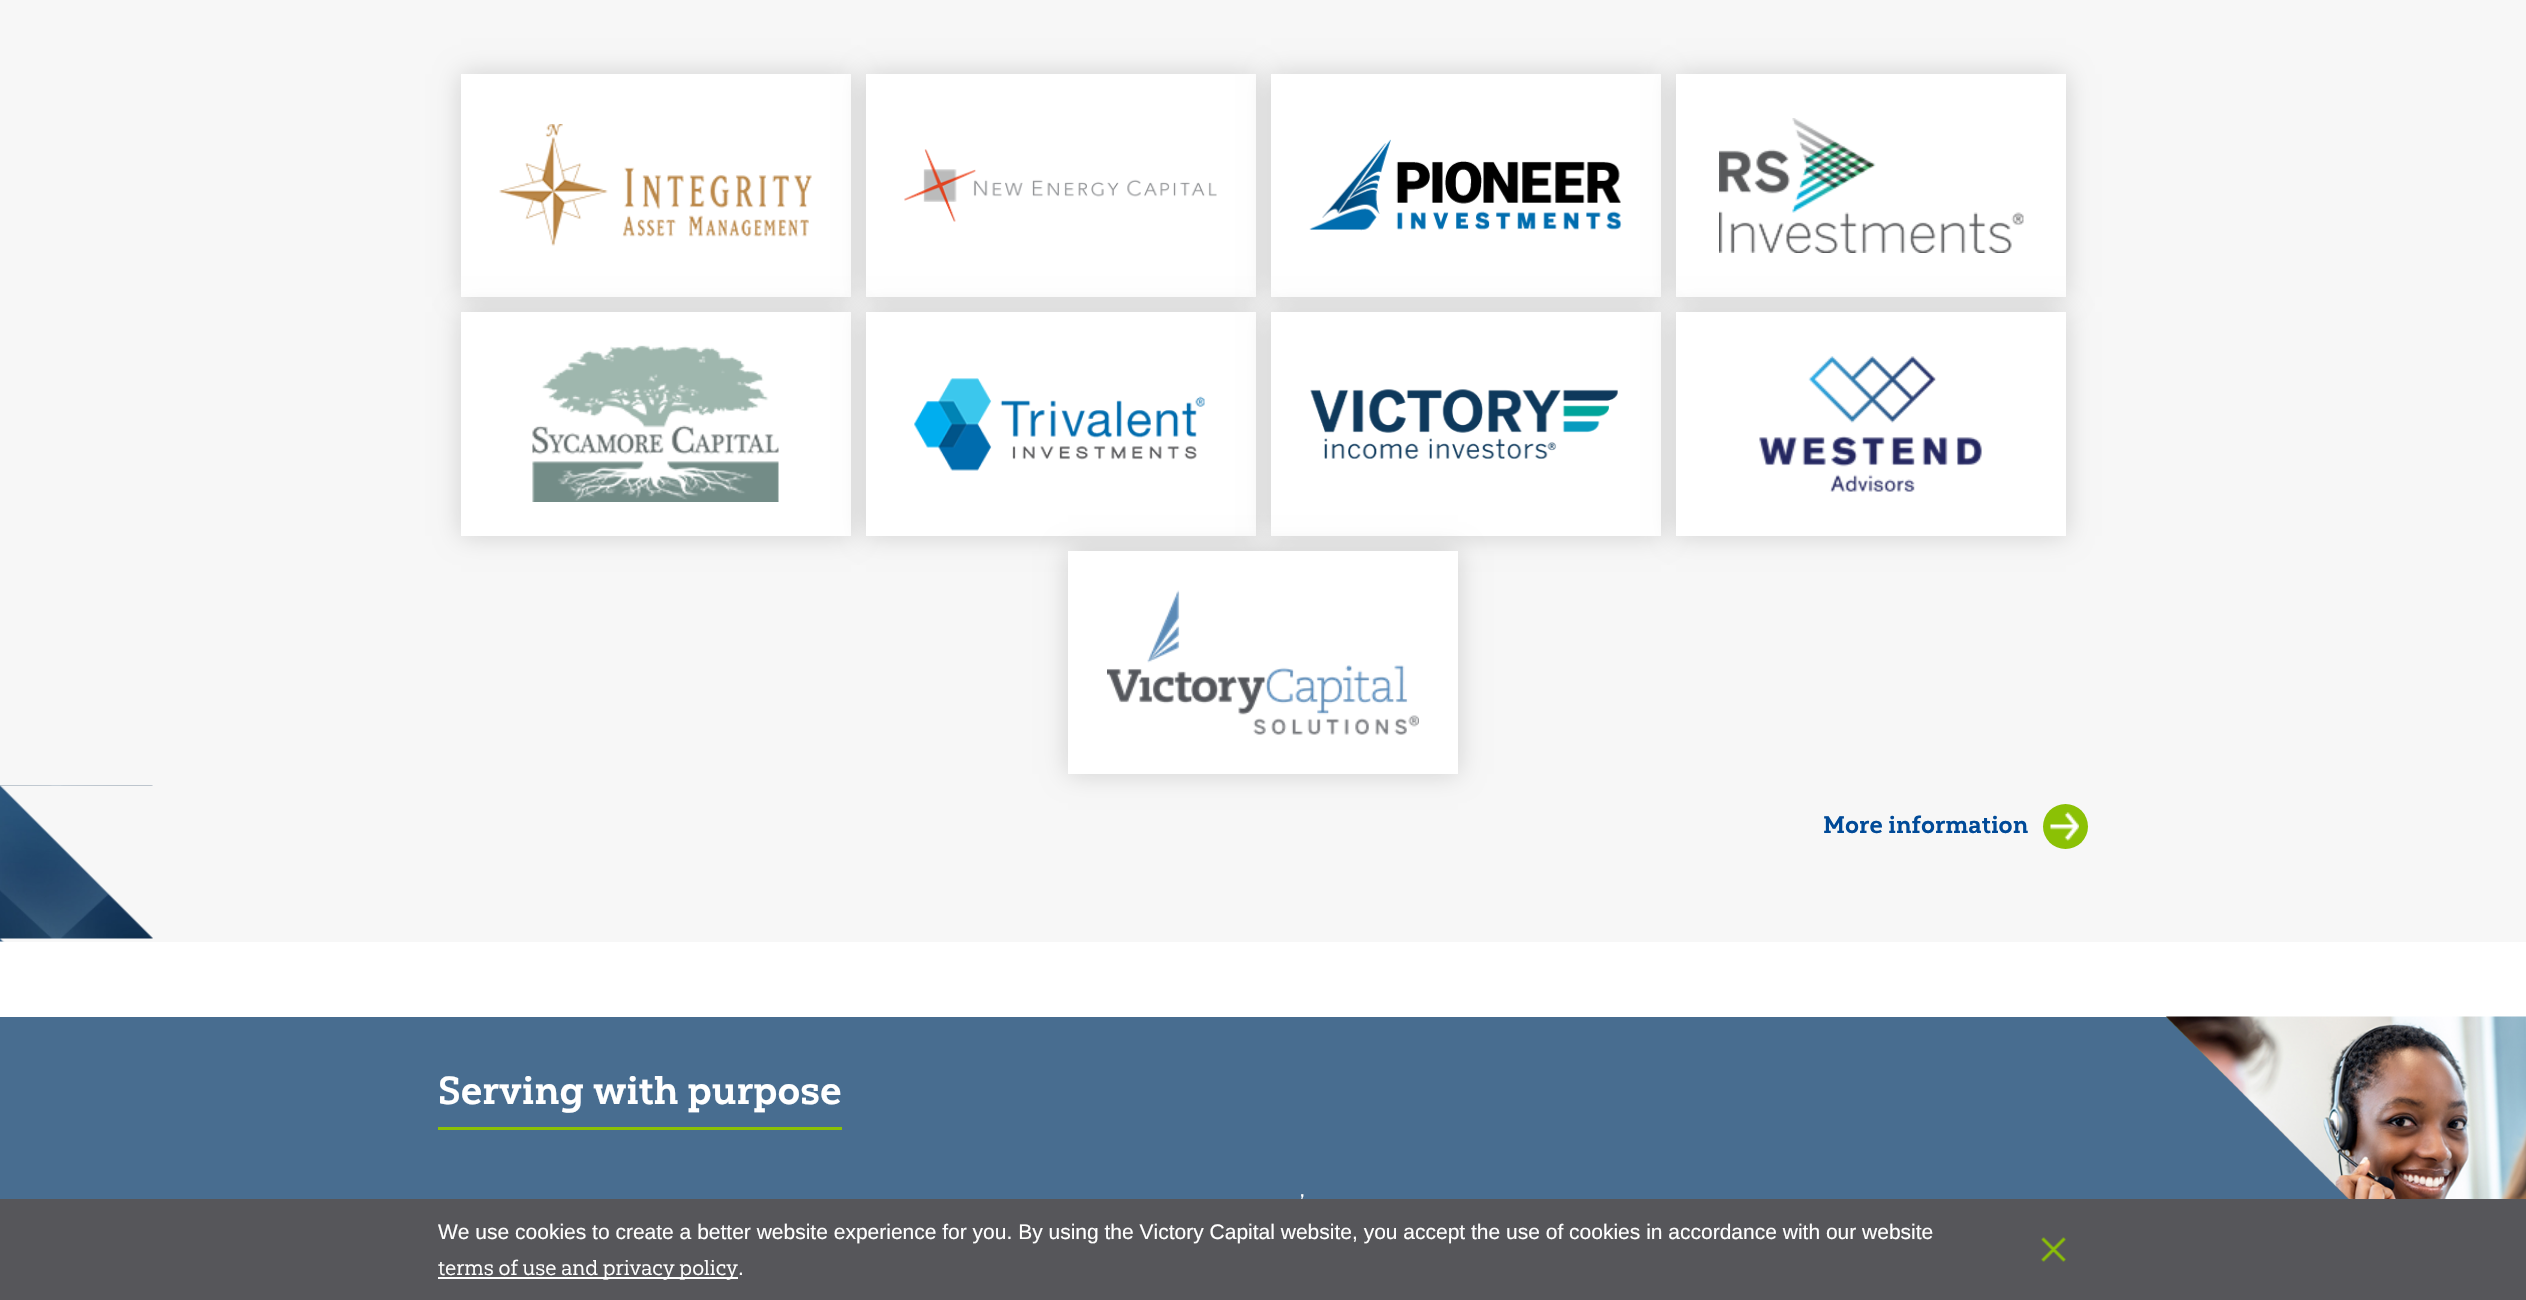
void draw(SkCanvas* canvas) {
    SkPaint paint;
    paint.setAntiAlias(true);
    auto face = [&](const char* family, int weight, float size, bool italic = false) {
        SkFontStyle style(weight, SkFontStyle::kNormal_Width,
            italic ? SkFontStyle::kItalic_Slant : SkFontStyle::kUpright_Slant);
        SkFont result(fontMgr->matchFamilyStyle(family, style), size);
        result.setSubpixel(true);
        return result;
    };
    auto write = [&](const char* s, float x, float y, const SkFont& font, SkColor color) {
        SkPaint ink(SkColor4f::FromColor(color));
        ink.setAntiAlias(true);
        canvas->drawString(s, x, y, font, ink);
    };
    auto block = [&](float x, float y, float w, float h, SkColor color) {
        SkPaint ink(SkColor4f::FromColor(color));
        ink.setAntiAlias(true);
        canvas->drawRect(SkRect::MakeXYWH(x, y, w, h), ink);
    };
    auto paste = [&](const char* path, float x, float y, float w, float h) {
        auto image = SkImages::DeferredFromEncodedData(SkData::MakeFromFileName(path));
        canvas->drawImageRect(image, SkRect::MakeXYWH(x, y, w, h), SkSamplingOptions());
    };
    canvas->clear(SK_ColorWHITE);
    block(0, 0, 2526, 942, SkColorSetRGB(247, 247, 247));
    paste("pic1.png", 0, 785, 153, 157);
    paint.setColor(SkColorSetARGB(41, 0, 0, 0));
    paint.setMaskFilter(SkMaskFilter::MakeBlur(kNormal_SkBlurStyle, 12));
    canvas->drawRect(SkRect::MakeXYWH(461, 74, 390, 223), paint);
    paint.setMaskFilter(nullptr);
    block(461, 74, 390, 223, SK_ColorWHITE);
    paste("pic2.png", 499, 124, 313, 122);
    paint.setMaskFilter(SkMaskFilter::MakeBlur(kNormal_SkBlurStyle, 12));
    canvas->drawRect(SkRect::MakeXYWH(866, 74, 390, 223), paint);
    paint.setMaskFilter(nullptr);
    block(866, 74, 390, 223, SK_ColorWHITE);
    paste("pic3.png", 904, 149, 313, 73);
    paint.setMaskFilter(SkMaskFilter::MakeBlur(kNormal_SkBlurStyle, 12));
    canvas->drawRect(SkRect::MakeXYWH(1271, 74, 390, 223), paint);
    paint.setMaskFilter(nullptr);
    block(1271, 74, 390, 223, SK_ColorWHITE);
    paste("pic4.png", 1309, 139, 313, 92);
    paint.setMaskFilter(SkMaskFilter::MakeBlur(kNormal_SkBlurStyle, 12));
    canvas->drawRect(SkRect::MakeXYWH(1676, 74, 390, 223), paint);
    paint.setMaskFilter(nullptr);
    block(1676, 74, 390, 223, SK_ColorWHITE);
    paste("pic5.png", 1719, 118, 305, 135);
    paint.setMaskFilter(SkMaskFilter::MakeBlur(kNormal_SkBlurStyle, 12));
    canvas->drawRect(SkRect::MakeXYWH(461, 312, 390, 224), paint);
    paint.setMaskFilter(nullptr);
    block(461, 312, 390, 224, SK_ColorWHITE);
    paste("pic6.png", 532, 345, 247, 157);
    paint.setMaskFilter(SkMaskFilter::MakeBlur(kNormal_SkBlurStyle, 12));
    canvas->drawRect(SkRect::MakeXYWH(866, 312, 390, 224), paint);
    paint.setMaskFilter(nullptr);
    block(866, 312, 390, 224, SK_ColorWHITE);
    paste("pic7.png", 914, 378, 291, 93);
    paint.setMaskFilter(SkMaskFilter::MakeBlur(kNormal_SkBlurStyle, 12));
    canvas->drawRect(SkRect::MakeXYWH(1271, 312, 390, 224), paint);
    paint.setMaskFilter(nullptr);
    block(1271, 312, 390, 224, SK_ColorWHITE);
    paste("pic8.png", 1310, 389, 308, 70);
    paint.setMaskFilter(SkMaskFilter::MakeBlur(kNormal_SkBlurStyle, 12));
    canvas->drawRect(SkRect::MakeXYWH(1676, 312, 390, 224), paint);
    paint.setMaskFilter(nullptr);
    block(1676, 312, 390, 224, SK_ColorWHITE);
    paste("pic9.png", 1759, 356, 223, 136);
    paint.setMaskFilter(SkMaskFilter::MakeBlur(kNormal_SkBlurStyle, 12));
    canvas->drawRect(SkRect::MakeXYWH(1068, 551, 390, 223), paint);
    paint.setMaskFilter(nullptr);
    block(1068, 551, 390, 223, SK_ColorWHITE);
    paste("pic10.png", 1107, 590, 312, 145);
    auto kFont1 = face("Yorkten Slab", 800, 24);
    write("More information", 1823, 833, kFont1, SkColorSetRGB(0, 74, 152));
    paint.setColor(SkColorSetRGB(139, 193, 5));
    canvas->drawCircle(2065.5f, 826.5f, 22.5f, paint);
    paste("pic11.png", 2050, 812, 29, 29);
    block(0, 1017, 2349, 182, SkColorSetRGB(72, 109, 144));
    auto kFont2 = face("Yorkten Slab", 800, 39);
    write("Serving with purpose", 438, 1104, kFont2, SK_ColorWHITE);
    block(438, 1127, 404, 3, SkColorSetRGB(139, 193, 5));
    auto kFont3 = face("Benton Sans", 400, 24);
    write("’", 1299, 1212, kFont3, SK_ColorWHITE);
    paste("pic12.png", 2166, 1016, 360, 183);
    block(0, 1199, 2526, 101, SkColorSetRGB(86, 86, 90));
    auto kFont4 = face("Liberation Sans", 400, 21);
    write("We use cookies to create a better website experience for you. By using the Victory Capital website, you accept the use of cookies in accordance with our website", 438, 1239, kFont4, SK_ColorWHITE);
    block(438, 1277, 300, 2, SK_ColorWHITE);
    auto kFont5 = face("Yorkten Slab", 500, 21);
    write("terms of use and privacy policy", 438, 1275, kFont5, SK_ColorWHITE);
    write(".", 738, 1275, kFont4, SK_ColorWHITE);
    paste("pic13.png", 2041, 1237, 25, 25);
}
